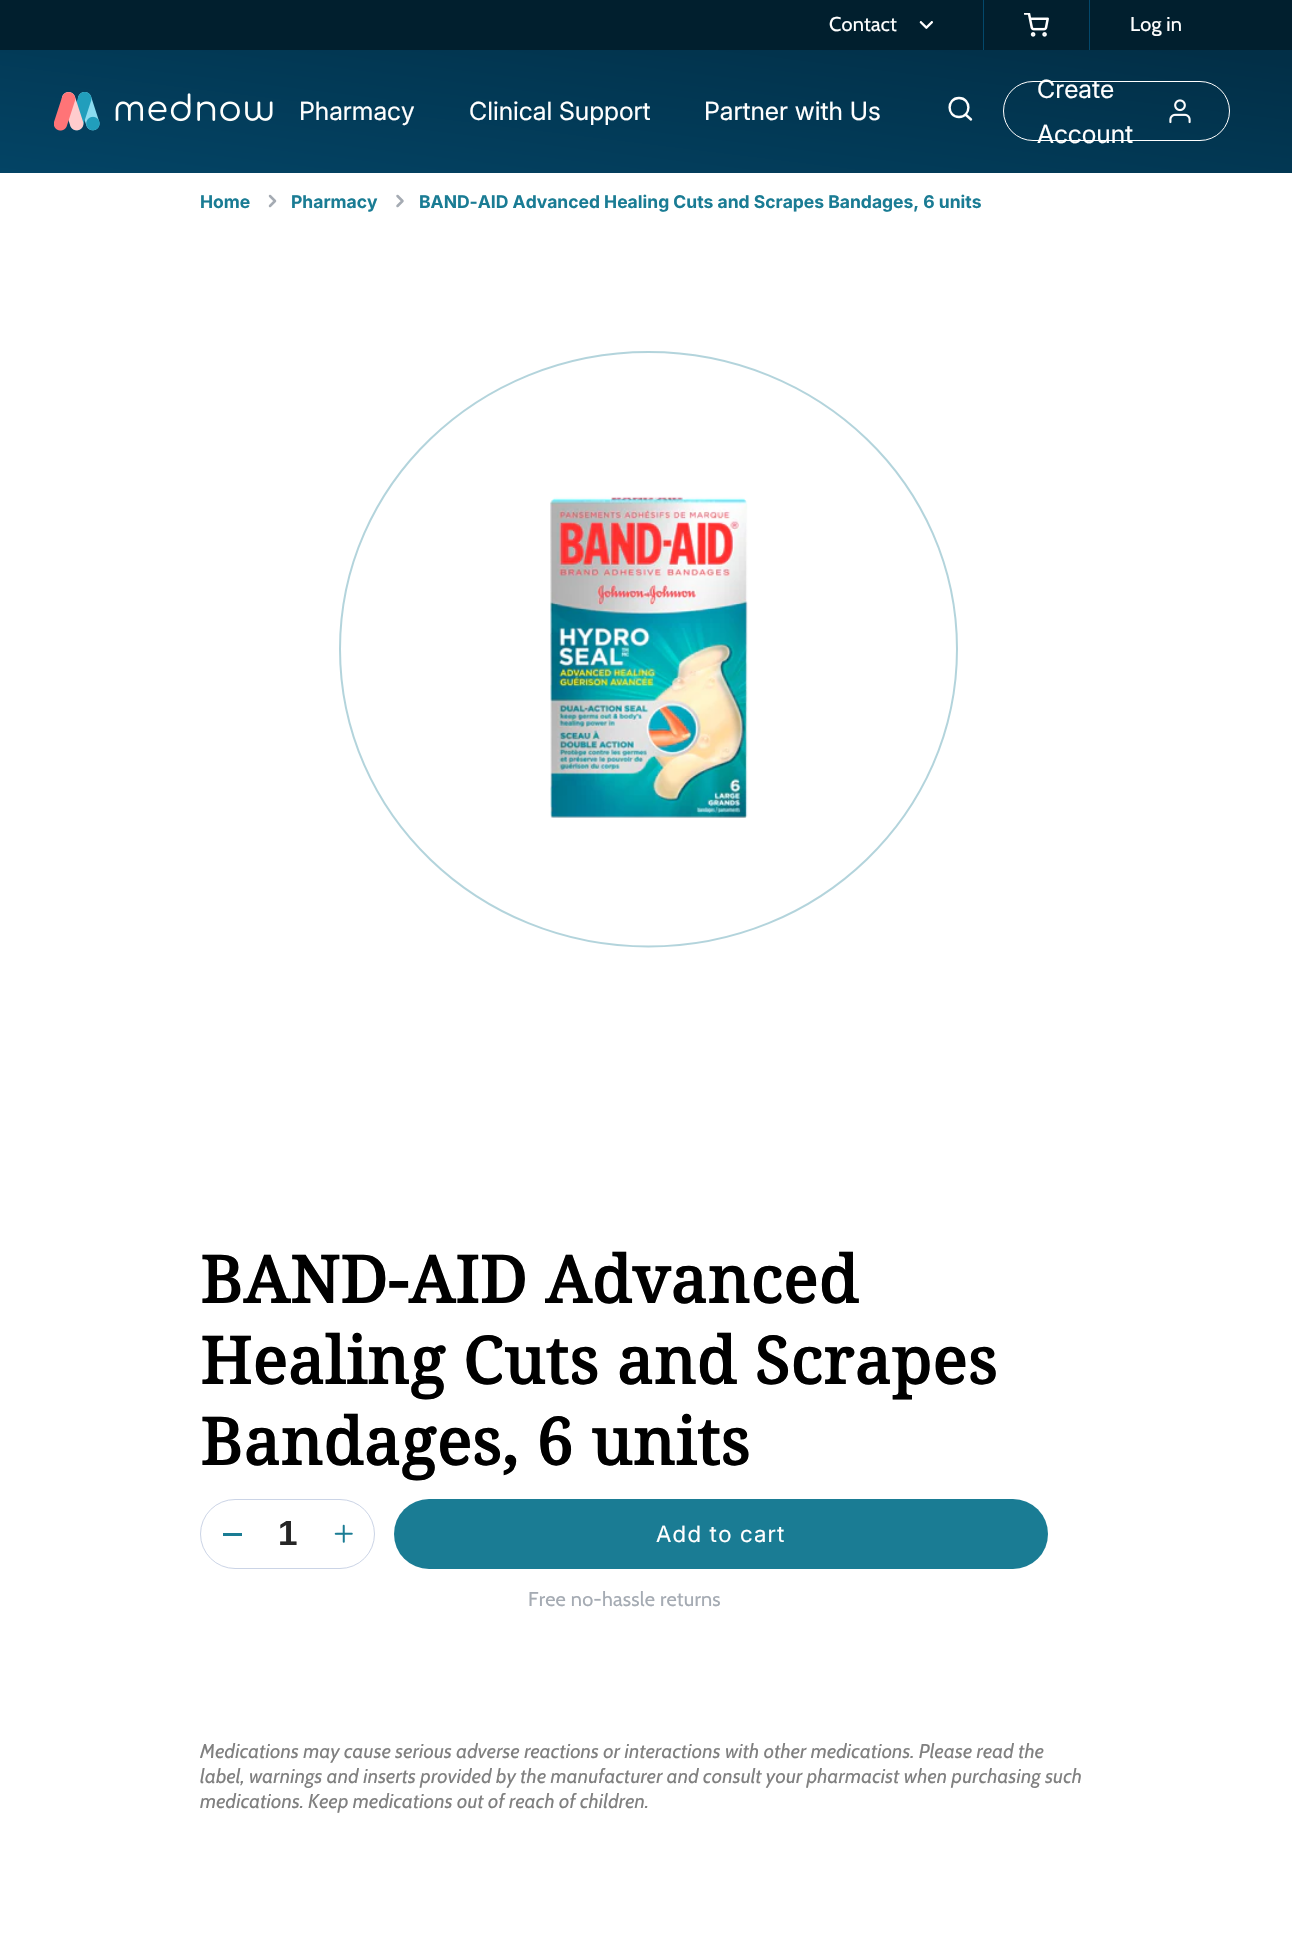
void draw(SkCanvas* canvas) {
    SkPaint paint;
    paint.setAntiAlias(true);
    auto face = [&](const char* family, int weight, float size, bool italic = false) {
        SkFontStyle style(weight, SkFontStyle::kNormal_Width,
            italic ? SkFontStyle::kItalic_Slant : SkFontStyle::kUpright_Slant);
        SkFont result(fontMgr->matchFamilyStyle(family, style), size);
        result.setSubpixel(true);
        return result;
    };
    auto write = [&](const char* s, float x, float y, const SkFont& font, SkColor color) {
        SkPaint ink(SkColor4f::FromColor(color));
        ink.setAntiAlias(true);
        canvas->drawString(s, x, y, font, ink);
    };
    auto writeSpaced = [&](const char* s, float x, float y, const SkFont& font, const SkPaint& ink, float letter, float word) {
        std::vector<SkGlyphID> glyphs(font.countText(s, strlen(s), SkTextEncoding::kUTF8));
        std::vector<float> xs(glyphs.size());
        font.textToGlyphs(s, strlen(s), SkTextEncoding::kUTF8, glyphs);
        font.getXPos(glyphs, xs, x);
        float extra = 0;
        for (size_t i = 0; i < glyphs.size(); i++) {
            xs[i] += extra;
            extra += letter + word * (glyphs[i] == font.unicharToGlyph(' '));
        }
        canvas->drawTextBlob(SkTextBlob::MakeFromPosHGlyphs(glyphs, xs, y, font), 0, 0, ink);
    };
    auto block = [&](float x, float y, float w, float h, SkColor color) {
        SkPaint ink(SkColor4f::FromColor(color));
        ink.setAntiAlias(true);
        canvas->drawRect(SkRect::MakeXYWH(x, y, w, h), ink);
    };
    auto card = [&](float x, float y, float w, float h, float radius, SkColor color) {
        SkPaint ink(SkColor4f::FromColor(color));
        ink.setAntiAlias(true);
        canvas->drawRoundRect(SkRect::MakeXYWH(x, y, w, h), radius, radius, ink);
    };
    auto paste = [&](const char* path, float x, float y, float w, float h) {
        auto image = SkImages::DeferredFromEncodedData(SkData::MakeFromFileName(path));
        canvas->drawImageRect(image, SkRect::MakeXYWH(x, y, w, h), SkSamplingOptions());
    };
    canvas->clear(SK_ColorWHITE);
    block(0, 0, 1292, 50, SkColorSetRGB(1, 31, 46));
    auto kFont1 = face("Cabin", 400, 20);
    paint.setColor(SK_ColorWHITE);
    writeSpaced("Contact", 829, 31, kFont1, paint, 0.2f, 0);
    paste("pic1.png", 919, 21, 14, 8);
    block(1089, 0, 1, 50, SkColorSetRGB(3, 72, 107));
    block(983, 0, 1, 50, SkColorSetRGB(3, 72, 107));
    paste("pic2.png", 1024, 13, 25, 24);
    writeSpaced("Log in", 1130, 31, kFont1, paint, 0.2f, 0);
    {
        const SkColor colors[] = {SkColorSetRGB(2, 47, 71), SkColorSetRGB(3, 72, 107)};
        const float stops[] = {0.04f, 1};
        const SkPoint ends[] = {{663, -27}, {623, 301}};
        paint.setShader(SkGradientShader::MakeLinear(ends, colors, stops, 2, SkTileMode::kClamp));
        paint.setAlpha(255);
    }
    canvas->drawRect(SkRect::MakeXYWH(0, 50, 1292, 123), paint);
    paste("pic3.png", 54, 92, 219, 39);
    auto kFont2 = face("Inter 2", 400, 25);
    write("Pharmacy", 299, 120, kFont2, SK_ColorWHITE);
    write("Clinical Support", 469, 120, kFont2, SK_ColorWHITE);
    write("Partner with Us", 704, 120, kFont2, SK_ColorWHITE);
    paint.setStyle(SkPaint::kStroke_Style);
    paint.setStrokeWidth(2.4f);
    paint.setStrokeCap(SkPaint::kRound_Cap);
    paint.setStrokeJoin(SkPaint::kRound_Join);
    paint.setShader(nullptr);
    paint.setColor(SK_ColorWHITE);
    canvas->drawPath(SkPathBuilder().moveTo(959, 117).cubicTo(971.5f, 117, 971.5f, 98, 959, 98).cubicTo(946.5f, 98, 946.5f, 117, 959, 117).close().moveTo(971, 119.5f).lineTo(965.5f, 114.5f).detach(), paint);
    paint.setStrokeWidth(1);
    paint.setStrokeCap(SkPaint::kButt_Cap);
    paint.setStrokeJoin(SkPaint::kMiter_Join);
    canvas->drawRoundRect(SkRect::MakeXYWH(1003.5f, 81.5f, 226, 59), 29.5f, 29.5f, paint);
    write("Create", 1037, 98, kFont2, SK_ColorWHITE);
    paste("pic4.png", 1169, 99, 22, 25);
    write("Account", 1037, 143, kFont2, SK_ColorWHITE);
    auto kFont3 = face("Inter", 700, 17.5f);
    write("Home", 200, 208, kFont3, SkColorSetRGB(26, 124, 148));
    paint.setStrokeWidth(2.5f);
    paint.setStrokeCap(SkPaint::kRound_Cap);
    paint.setStrokeJoin(SkPaint::kRound_Join);
    paint.setColor(SkColorSetRGB(165, 171, 179));
    canvas->drawPath(SkPathBuilder().moveTo(270, 206).lineTo(275, 201).lineTo(270, 196).detach(), paint);
    write("Pharmacy", 291, 208, kFont3, SkColorSetRGB(26, 124, 148));
    canvas->drawPath(SkPathBuilder().moveTo(397.5f, 206).lineTo(402.5f, 201).lineTo(397.5f, 196).detach(), paint);
    write("BAND-AID Advanced Healing Cuts and Scrapes Bandages, 6 units", 419, 208, kFont3, SkColorSetRGB(26, 124, 148));
    paint.setStrokeWidth(2);
    paint.setStrokeCap(SkPaint::kButt_Cap);
    paint.setStrokeJoin(SkPaint::kMiter_Join);
    paint.setColor(SkColorSetRGB(179, 212, 220));
    canvas->drawPath(SkPathBuilder().moveTo(648.5f, 352).cubicTo(819, 352, 957, 485, 957, 649).cubicTo(957, 813.5f, 819, 946.5f, 648.5f, 946.5f).cubicTo(478, 946.5f, 340, 813.5f, 340, 649).cubicTo(340, 485, 478, 352, 648.5f, 352).close().detach(), paint);
    paste("pic5.png", 550, 496, 198, 322);
    auto kFont4 = face("Noto Serif", 700, 65);
    paint.setStyle(SkPaint::kFill_Style);
    paint.setColor(SK_ColorBLACK);
    writeSpaced("BAND-AID Advanced", 200, 1303, kFont4, paint, 0.65f, 0);
    writeSpaced("Healing Cuts and Scrapes", 200, 1384, kFont4, paint, 0.65f, 0);
    writeSpaced("Bandages, 6 units", 200, 1465, kFont4, paint, 0.65f, 0);
    paint.setStyle(SkPaint::kStroke_Style);
    paint.setStrokeWidth(1);
    paint.setColor(SkColorSetRGB(203, 212, 230));
    canvas->drawRoundRect(SkRect::MakeXYWH(200.5f, 1499.5f, 174, 69), 34.5f, 34.5f, paint);
    block(223, 1533, 19, 3, SkColorSetRGB(26, 124, 148));
    auto kFont5 = face("Liberation Sans", 700, 35);
    write("1", 278, 1545, kFont5, SkColorSetRGB(38, 38, 38));
    paste("pic6.png", 334, 1524, 19, 19);
    card(394, 1499, 654, 70, 35, SkColorSetRGB(26, 124, 148));
    auto kFont6 = face("Inter", 400, 22.5f);
    paint.setStyle(SkPaint::kFill_Style);
    paint.setColor(SK_ColorWHITE);
    writeSpaced("Add to cart", 656, 1542, kFont6, paint, 1.25f, 0);
    paint.setColor(SkColorSetRGB(165, 171, 179));
    writeSpaced("Free no-hassle returns", 528, 1606, kFont1, paint, 0.2f, 0);
    auto kFont7 = face("Cabin", 400, 20, true);
    paint.setColor(SkColorSetRGB(128, 128, 128));
    writeSpaced("Medications may cause serious adverse reactions or interactions with other medications. Please read the", 200, 1758, kFont7, paint, 0.2f, 0);
    writeSpaced("label, warnings and inserts provided by the manufacturer and consult your pharmacist when purchasing such", 200, 1783, kFont7, paint, 0.2f, 0);
    writeSpaced("medications. Keep medications out of reach of children.", 200, 1808, kFont7, paint, 0.2f, 0);
}
